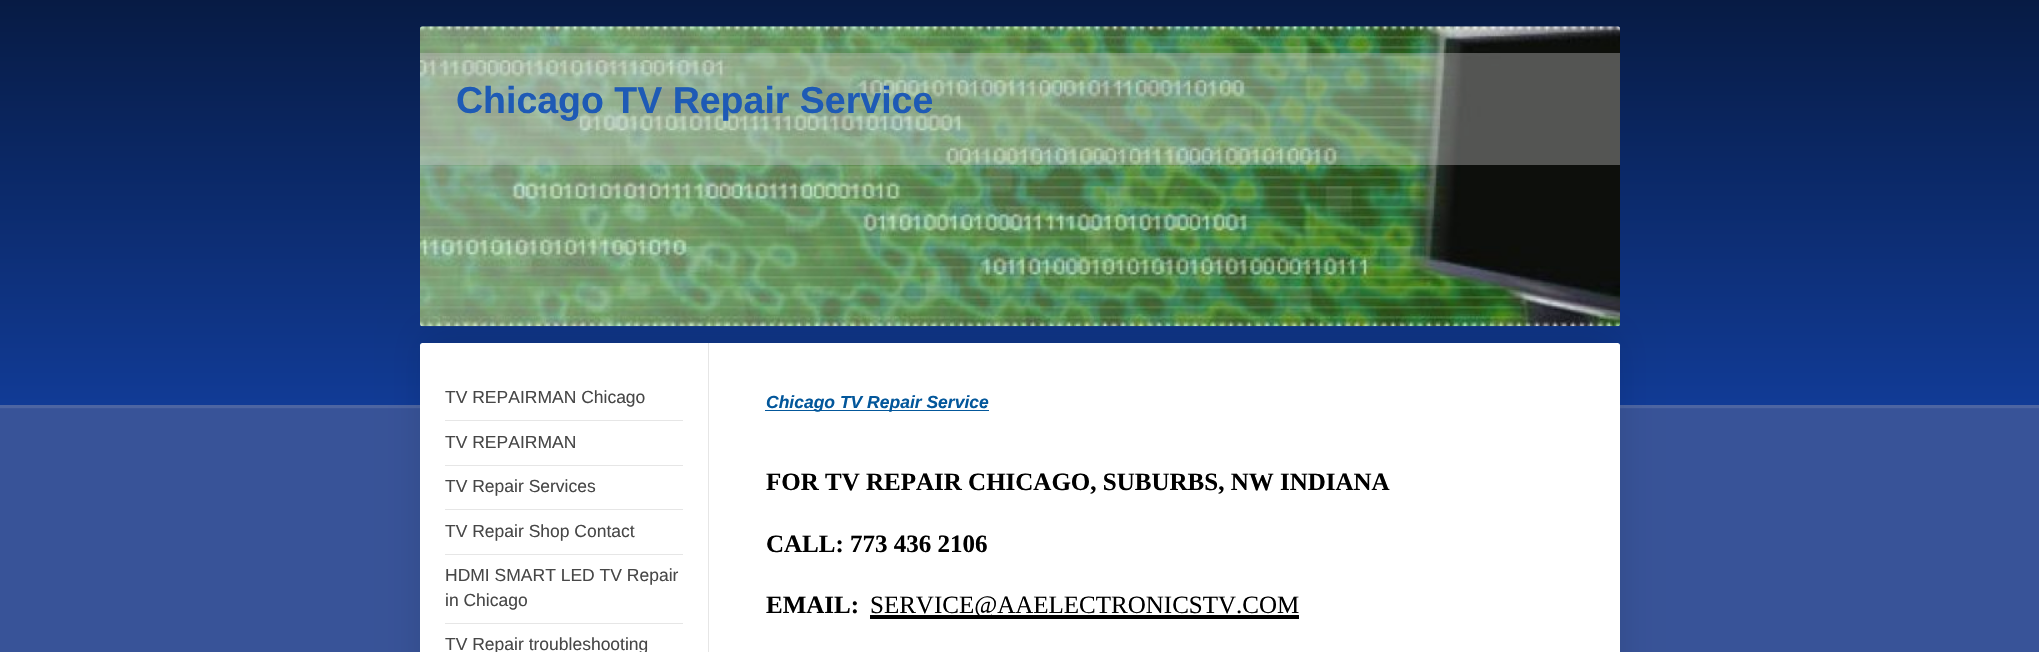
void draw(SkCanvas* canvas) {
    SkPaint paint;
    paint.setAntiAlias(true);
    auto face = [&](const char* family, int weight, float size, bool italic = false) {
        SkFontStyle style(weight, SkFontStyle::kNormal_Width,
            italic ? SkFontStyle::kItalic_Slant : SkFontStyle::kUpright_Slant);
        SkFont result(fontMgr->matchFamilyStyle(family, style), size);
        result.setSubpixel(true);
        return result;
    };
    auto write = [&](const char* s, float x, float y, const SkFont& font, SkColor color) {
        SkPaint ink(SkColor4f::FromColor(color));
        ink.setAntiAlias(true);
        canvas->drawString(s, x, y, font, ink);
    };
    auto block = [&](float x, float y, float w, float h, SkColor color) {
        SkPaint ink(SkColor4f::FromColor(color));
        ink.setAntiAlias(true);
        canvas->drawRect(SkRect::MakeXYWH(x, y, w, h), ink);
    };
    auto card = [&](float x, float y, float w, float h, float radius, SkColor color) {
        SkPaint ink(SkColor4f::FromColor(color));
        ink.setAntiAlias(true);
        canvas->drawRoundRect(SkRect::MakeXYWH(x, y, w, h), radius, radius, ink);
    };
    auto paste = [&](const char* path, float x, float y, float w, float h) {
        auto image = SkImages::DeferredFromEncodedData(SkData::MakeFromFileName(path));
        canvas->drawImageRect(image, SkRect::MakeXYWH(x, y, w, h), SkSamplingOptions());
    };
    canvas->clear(SkColorSetRGB(56, 83, 152));
    paint.setColor(SkColorSetARGB(26, 255, 255, 255));
    paint.setMaskFilter(SkMaskFilter::MakeBlur(kNormal_SkBlurStyle, 0.5f));
    canvas->drawRect(SkRect::MakeXYWH(0, 3, 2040, 405), paint);
    paint.setMaskFilter(nullptr);
    {
        const SkColor colors[] = {SkColorSetRGB(17, 59, 150), SkColorSetRGB(7, 27, 68)};
        const float stops[] = {0, 1};
        const SkPoint ends[] = {{0, 405}, {0, 0}};
        paint.setShader(SkGradientShader::MakeLinear(ends, colors, stops, 2, SkTileMode::kClamp));
        paint.setAlpha(255);
    }
    canvas->drawRect(SkRect::MakeXYWH(0, 0, 2039, 405), paint);
    paste("pic1.png", 420, 26, 1200, 301);
    block(420, 53, 1200, 112, SkColorSetARGB(94, 204, 204, 204));
    auto kFont1 = face("Liberation Sans", 700, 37.5f);
    write("Chicago TV Repair Service", 456, 113, kFont1, SkColorSetRGB(30, 90, 181));
    paint.setShader(nullptr);
    paint.setColor(SkColorSetARGB(26, 0, 0, 0));
    paint.setMaskFilter(SkMaskFilter::MakeBlur(kNormal_SkBlurStyle, 19));
    canvas->drawRoundRect(SkRect::MakeXYWH(420, 330, 1200, 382), 2.5f, 2.5f, paint);
    paint.setMaskFilter(nullptr);
    card(420, 343, 1200, 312, 2.5f, SK_ColorWHITE);
    block(445, 420, 238, 1, SkColorSetRGB(230, 230, 230));
    auto kFont2 = face("Liberation Sans", 400, 17.5f);
    write("TV REPAIRMAN Chicago", 445, 403, kFont2, SkColorSetRGB(71, 71, 71));
    block(445, 465, 238, 1, SkColorSetRGB(230, 230, 230));
    write("TV REPAIRMAN", 445, 448, kFont2, SkColorSetRGB(71, 71, 71));
    block(445, 509, 238, 1, SkColorSetRGB(230, 230, 230));
    write("TV Repair Services", 445, 492, kFont2, SkColorSetRGB(71, 71, 71));
    block(445, 554, 238, 1, SkColorSetRGB(230, 230, 230));
    write("TV Repair Shop Contact", 445, 537, kFont2, SkColorSetRGB(71, 71, 71));
    block(445, 623, 238, 1, SkColorSetRGB(230, 230, 230));
    write("HDMI SMART LED TV Repair", 445, 581, kFont2, SkColorSetRGB(71, 71, 71));
    write("in Chicago", 445, 606, kFont2, SkColorSetRGB(71, 71, 71));
    write("TV Repair troubleshooting", 445, 650, kFont2, SkColorSetRGB(71, 71, 71));
    block(708, 343, 1, 309, SkColorSetRGB(230, 230, 230));
    block(765, 410, 224, 1, SkColorSetRGB(3, 87, 155));
    auto kFont3 = face("Liberation Sans", 700, 17.5f, true);
    write("Chicago TV Repair Service", 766, 408, kFont3, SkColorSetRGB(3, 87, 155));
    auto kFont4 = face("Liberation Serif", 700, 25);
    write("FOR TV REPAIR CHICAGO, SUBURBS, NW INDIANA", 766, 490, kFont4, SK_ColorBLACK);
    write("CALL: 773 436 2106", 766, 552, kFont4, SK_ColorBLACK);
    write("EMAIL:", 766, 613, kFont4, SK_ColorBLACK);
    block(870, 615, 429, 4, SK_ColorBLACK);
    auto kFont5 = face("Liberation Serif", 400, 25);
    write("SERVICE@AAELECTRONICSTV.COM", 870, 613, kFont5, SK_ColorBLACK);
}
